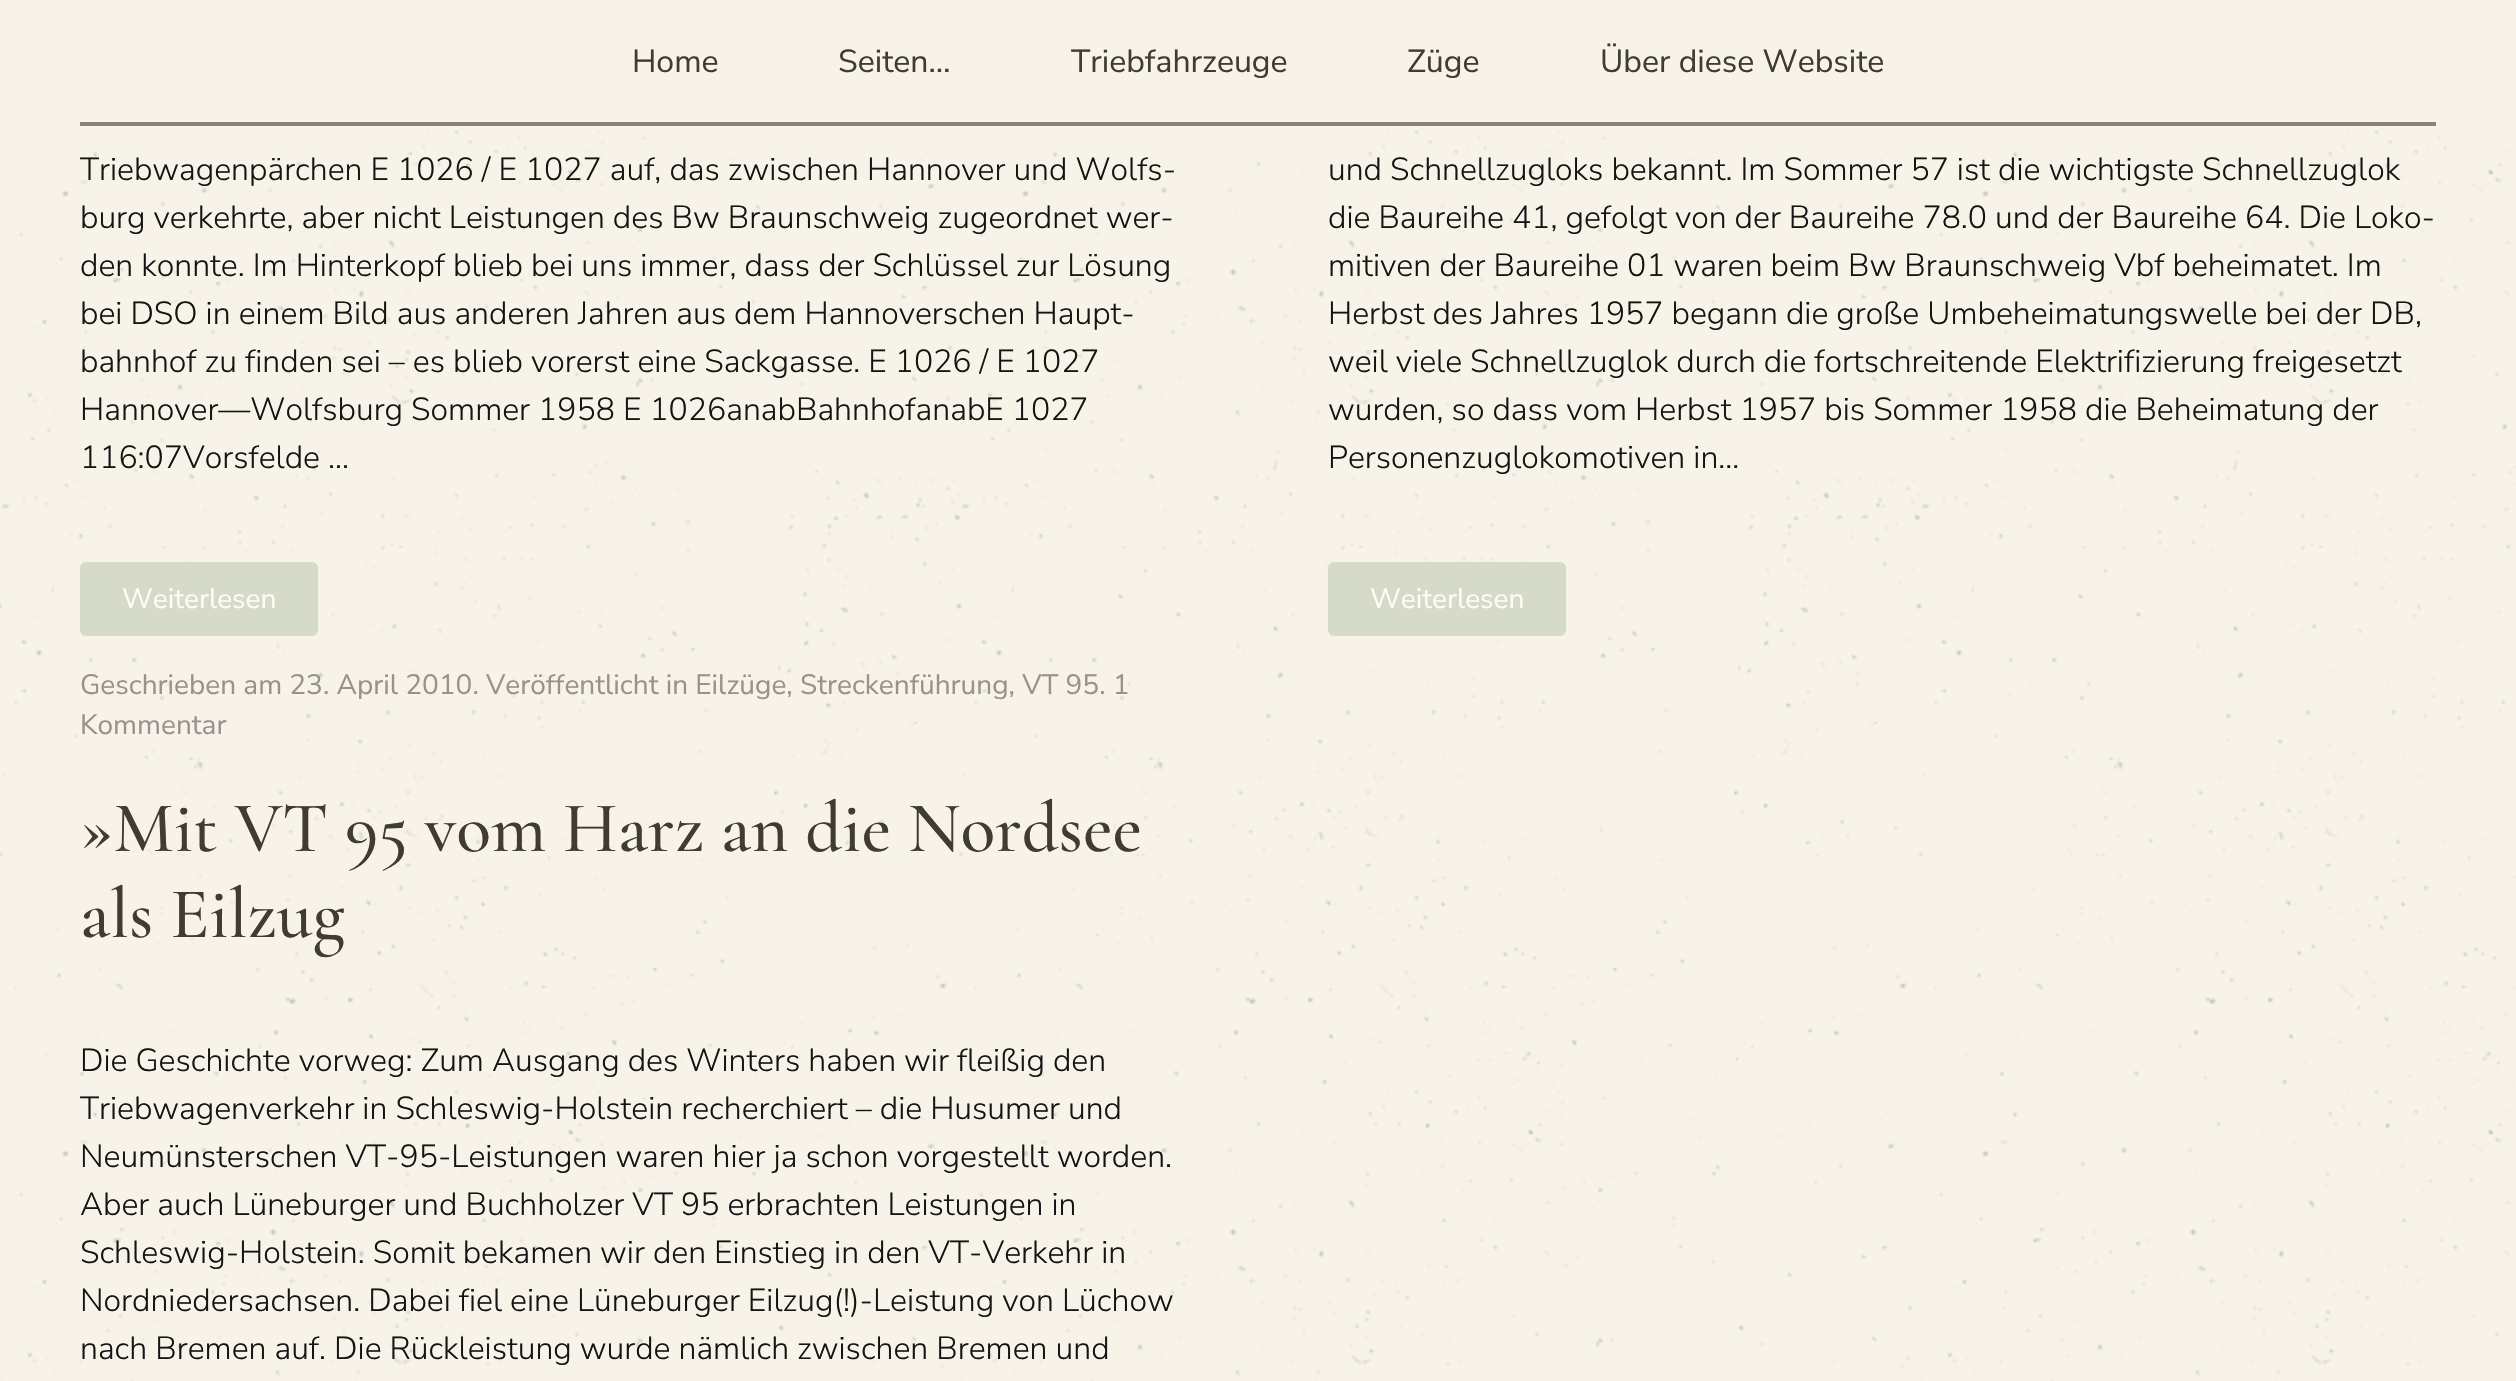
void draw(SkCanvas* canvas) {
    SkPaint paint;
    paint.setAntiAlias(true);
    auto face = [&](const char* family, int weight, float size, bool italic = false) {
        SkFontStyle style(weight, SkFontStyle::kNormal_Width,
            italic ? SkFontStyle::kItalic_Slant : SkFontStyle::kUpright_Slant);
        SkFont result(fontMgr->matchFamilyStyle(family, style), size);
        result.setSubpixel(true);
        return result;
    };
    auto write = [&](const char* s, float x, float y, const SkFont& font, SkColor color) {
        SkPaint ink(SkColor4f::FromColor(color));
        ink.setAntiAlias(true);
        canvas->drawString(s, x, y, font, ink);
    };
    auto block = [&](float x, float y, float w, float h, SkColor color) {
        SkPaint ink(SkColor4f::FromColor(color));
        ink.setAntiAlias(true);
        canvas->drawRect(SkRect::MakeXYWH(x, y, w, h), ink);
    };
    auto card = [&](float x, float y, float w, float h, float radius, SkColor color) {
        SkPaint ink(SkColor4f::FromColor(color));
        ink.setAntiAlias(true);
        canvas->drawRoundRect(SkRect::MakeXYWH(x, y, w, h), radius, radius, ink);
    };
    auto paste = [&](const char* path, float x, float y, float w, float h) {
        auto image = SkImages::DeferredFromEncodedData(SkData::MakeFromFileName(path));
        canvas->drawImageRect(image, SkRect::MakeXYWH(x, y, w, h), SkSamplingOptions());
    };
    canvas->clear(SkColorSetRGB(247, 243, 233));
    block(80, 122, 2356, 4, SkColorSetRGB(136, 131, 127));
    auto kFont1 = face("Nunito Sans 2", 200, 32);
    write("Home", 632, 72, kFont1, SkColorSetRGB(64, 60, 50));
    write("Seiten…", 838, 72, kFont1, SkColorSetRGB(64, 60, 50));
    write("Triebfahrzeuge", 1071, 72, kFont1, SkColorSetRGB(64, 60, 50));
    write("Züge", 1407, 72, kFont1, SkColorSetRGB(64, 60, 50));
    write("Über diese Website", 1600, 72, kFont1, SkColorSetRGB(64, 60, 50));
    paste("pic1.png", 0, 130, 2516, 1251);
    auto kFont2 = face("Nunito Sans", 200, 32);
    write("Triebwagenpärchen E 1026 / E 1027 auf, das zwischen Hannover und Wolfs-", 80, 180, kFont2, SkColorSetRGB(20, 20, 20));
    write("burg verkehrte, aber nicht Leistungen des Bw Braunschweig zugeordnet wer-", 80, 228, kFont2, SkColorSetRGB(20, 20, 20));
    write("den konnte. Im Hinterkopf blieb bei uns immer, dass der Schlüssel zur Lösung", 80, 276, kFont2, SkColorSetRGB(20, 20, 20));
    write("bei DSO in einem Bild aus anderen Jahren aus dem Hannoverschen Haupt-", 80, 324, kFont2, SkColorSetRGB(20, 20, 20));
    write("bahnhof zu finden sei – es blieb vorerst eine Sackgasse. E 1026 / E 1027", 80, 372, kFont2, SkColorSetRGB(20, 20, 20));
    write("Hannover—Wolfsburg Sommer 1958 E 1026anabBahnhofanabE 1027", 80, 420, kFont2, SkColorSetRGB(20, 20, 20));
    write("116:07Vorsfelde ...", 80, 468, kFont2, SkColorSetRGB(20, 20, 20));
    card(80, 562, 238, 74, 6, SkColorSetRGB(214, 218, 201));
    auto kFont3 = face("Nunito Sans 2", 200, 28);
    write("Weiterlesen", 122, 608, kFont3, SkColorSetRGB(255, 252, 245));
    write("und Schnellzugloks bekannt. Im Sommer 57 ist die wichtigste Schnellzuglok", 1328, 180, kFont2, SkColorSetRGB(20, 20, 20));
    write("die Baureihe 41, gefolgt von der Baureihe 78.0 und der Baureihe 64. Die Loko-", 1328, 228, kFont2, SkColorSetRGB(20, 20, 20));
    write("mitiven der Baureihe 01 waren beim Bw Braunschweig Vbf beheimatet. Im", 1328, 276, kFont2, SkColorSetRGB(20, 20, 20));
    write("Herbst des Jahres 1957 begann die große Umbeheimatungswelle bei der DB,", 1328, 324, kFont2, SkColorSetRGB(20, 20, 20));
    write("weil viele Schnellzuglok durch die fortschreitende Elektrifizierung freigesetzt", 1328, 372, kFont2, SkColorSetRGB(20, 20, 20));
    write("wurden, so dass vom Herbst 1957 bis Sommer 1958 die Beheimatung der", 1328, 420, kFont2, SkColorSetRGB(20, 20, 20));
    write("Personenzuglokomotiven in...", 1328, 468, kFont2, SkColorSetRGB(20, 20, 20));
    card(1328, 562, 238, 74, 6, SkColorSetRGB(214, 218, 201));
    write("Weiterlesen", 1370, 608, kFont3, SkColorSetRGB(255, 252, 245));
    write("Geschrieben am 23. April 2010. Veröffentlicht in Eilzüge, Streckenführung, VT 95. 1", 80, 694, kFont3, SkColorSetRGB(152, 146, 142));
    write("Kommentar", 80, 734, kFont3, SkColorSetRGB(152, 146, 142));
    auto kFont4 = face("Cormorant Garamond", 300, 72);
    write("»Mit VT 95 vom Harz an die Nordsee", 80, 851, kFont4, SkColorSetRGB(64, 60, 50));
    write("als Eilzug", 80, 937, kFont4, SkColorSetRGB(64, 60, 50));
    write("Die Geschichte vorweg: Zum Ausgang des Winters haben wir fleißig den", 80, 1071, kFont2, SkColorSetRGB(20, 20, 20));
    write("Triebwagenverkehr in Schleswig-Holstein recherchiert – die Husumer und", 80, 1119, kFont2, SkColorSetRGB(20, 20, 20));
    write("Neumünsterschen VT-95-Leistungen waren hier ja schon vorgestellt worden.", 80, 1167, kFont2, SkColorSetRGB(20, 20, 20));
    write("Aber auch Lüneburger und Buchholzer VT 95 erbrachten Leistungen in", 80, 1215, kFont2, SkColorSetRGB(20, 20, 20));
    write("Schleswig-Holstein. Somit bekamen wir den Einstieg in den VT-Verkehr in", 80, 1263, kFont2, SkColorSetRGB(20, 20, 20));
    write("Nordniedersachsen. Dabei fiel eine Lüneburger Eilzug(!)-Leistung von Lüchow", 80, 1311, kFont2, SkColorSetRGB(20, 20, 20));
    write("nach Bremen auf. Die Rückleistung wurde nämlich zwischen Bremen und", 80, 1359, kFont2, SkColorSetRGB(20, 20, 20));
}
